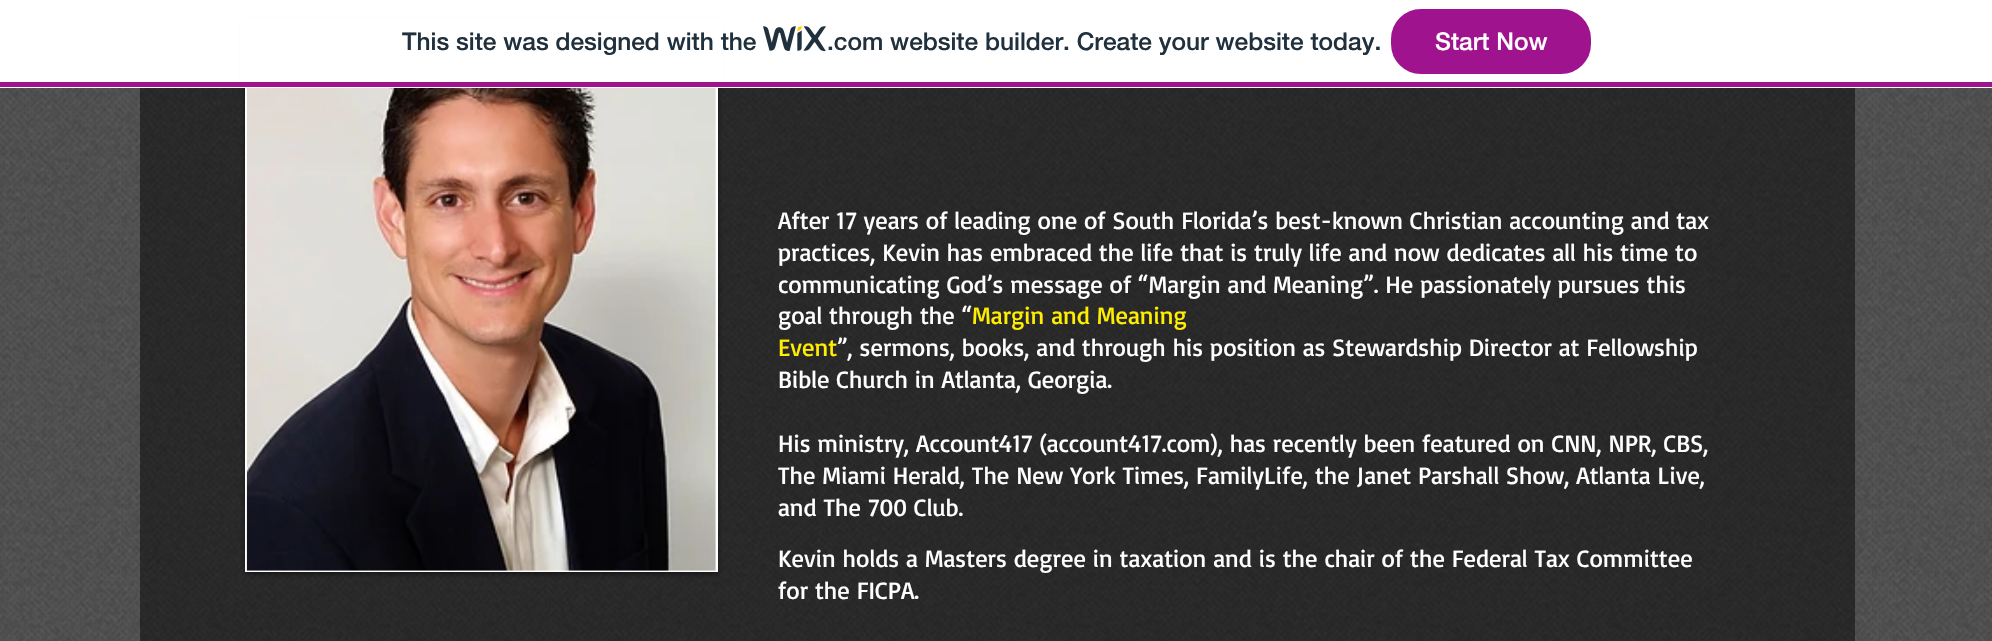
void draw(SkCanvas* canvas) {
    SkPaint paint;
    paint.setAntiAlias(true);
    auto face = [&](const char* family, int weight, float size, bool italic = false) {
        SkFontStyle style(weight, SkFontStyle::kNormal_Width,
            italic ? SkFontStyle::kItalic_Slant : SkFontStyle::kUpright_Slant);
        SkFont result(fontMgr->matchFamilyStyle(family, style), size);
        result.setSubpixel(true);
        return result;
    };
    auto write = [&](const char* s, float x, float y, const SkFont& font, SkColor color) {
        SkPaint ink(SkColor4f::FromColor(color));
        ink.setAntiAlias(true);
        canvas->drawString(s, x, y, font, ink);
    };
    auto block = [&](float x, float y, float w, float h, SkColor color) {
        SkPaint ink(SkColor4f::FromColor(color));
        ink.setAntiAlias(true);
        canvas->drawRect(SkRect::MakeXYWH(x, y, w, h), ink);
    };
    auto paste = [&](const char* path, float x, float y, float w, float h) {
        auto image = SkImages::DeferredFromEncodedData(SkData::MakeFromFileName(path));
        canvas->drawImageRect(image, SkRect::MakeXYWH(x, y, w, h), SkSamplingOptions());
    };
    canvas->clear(SK_ColorWHITE);
    paste("pic2.png", 0, 88, 1992, 553);
    block(140, 88, 1715, 553, SkColorSetARGB(125, 0, 0, 0));
    paint.setColor(SkColorSetARGB(128, 0, 0, 0));
    paint.setMaskFilter(SkMaskFilter::MakeBlur(kNormal_SkBlurStyle, 2.5f));
    canvas->drawRect(SkRect::MakeXYWH(245, 23, 473, 551), paint);
    paint.setMaskFilter(nullptr);
    block(240, 18, 483, 70, SK_ColorWHITE);
    block(0, 82, 1992, 5, SkColorSetRGB(160, 19, 142));
    auto kFont1 = face("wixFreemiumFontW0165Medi", 500, 24.5f);
    write("This site was designed with the", 402, 50, kFont1, SkColorSetRGB(32, 48, 60));
    paste("pic1.png", 763, 26, 63, 26);
    write(".com website builder. Create your website today.", 827, 50, kFont1, SkColorSetRGB(32, 48, 60));
    paint.setColor(SkColorSetRGB(160, 19, 142));
    canvas->drawRoundRect(SkRect::MakeXYWH(1392, 10, 198, 63), 29, 29, paint);
    paint.setStyle(SkPaint::kStroke_Style);
    paint.setStrokeWidth(2);
    canvas->drawRoundRect(SkRect::MakeXYWH(1392, 10, 198, 63), 29, 29, paint);
    write("Start Now", 1435, 50, kFont1, SK_ColorWHITE);
    block(245, 88, 473, 484, SK_ColorWHITE);
    paste("pic3.png", 246, 88, 470, 483);
    auto kFont2 = face("Basic", 400, 24.5f);
    write("After 17 years of leading one of South Florida’s best-known Christian accounting and tax", 778, 229, kFont2, SK_ColorWHITE);
    write("practices, Kevin has embraced the life that is truly life and now dedicates all his time to", 778, 261, kFont2, SK_ColorWHITE);
    write("communicating God’s message of “Margin and Meaning”. He passionately pursues this", 778, 293, kFont2, SK_ColorWHITE);
    write("goal through the “", 778, 324, kFont2, SK_ColorWHITE);
    write("Margin and Meaning", 972, 324, kFont2, SkColorSetRGB(255, 238, 0));
    write("Event", 778, 356, kFont2, SkColorSetRGB(255, 238, 0));
    write("”, sermons, books, and through his position as Stewardship Director at Fellowship", 837, 356, kFont2, SK_ColorWHITE);
    write("Bible Church in Atlanta, Georgia.", 778, 388, kFont2, SK_ColorWHITE);
    write("His ministry, Account417 (account417.com), has recently been featured on CNN, NPR, CBS,", 778, 452, kFont2, SK_ColorWHITE);
    write("The Miami Herald, The New York Times, FamilyLife, the Janet Parshall Show, Atlanta Live,", 778, 484, kFont2, SK_ColorWHITE);
    write("and The 700 Club.", 778, 516, kFont2, SK_ColorWHITE);
    write("Kevin holds a Masters degree in taxation and is the chair of the Federal Tax Committee", 778, 567, kFont2, SK_ColorWHITE);
    write("for the FICPA.", 778, 599, kFont2, SK_ColorWHITE);
}
